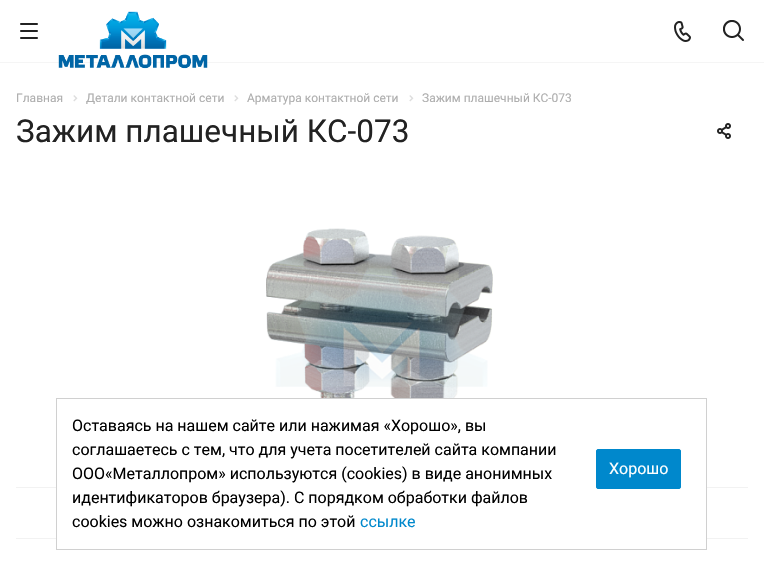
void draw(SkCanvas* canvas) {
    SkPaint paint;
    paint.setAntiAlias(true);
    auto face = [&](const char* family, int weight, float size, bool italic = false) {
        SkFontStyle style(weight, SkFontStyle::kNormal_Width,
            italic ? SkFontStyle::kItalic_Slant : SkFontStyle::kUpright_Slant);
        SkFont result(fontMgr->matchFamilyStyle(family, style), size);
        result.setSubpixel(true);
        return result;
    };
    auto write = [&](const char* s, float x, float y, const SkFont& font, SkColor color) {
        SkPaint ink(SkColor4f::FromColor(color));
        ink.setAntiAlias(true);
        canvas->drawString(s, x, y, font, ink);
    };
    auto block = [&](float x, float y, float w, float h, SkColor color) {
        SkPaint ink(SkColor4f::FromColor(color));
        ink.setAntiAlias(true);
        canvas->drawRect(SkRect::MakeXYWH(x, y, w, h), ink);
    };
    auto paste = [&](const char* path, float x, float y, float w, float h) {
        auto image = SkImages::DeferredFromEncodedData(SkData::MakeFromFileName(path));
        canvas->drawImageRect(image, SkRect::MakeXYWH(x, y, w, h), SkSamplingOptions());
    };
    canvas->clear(SK_ColorWHITE);
    block(0, 62, 764, 1, SkColorSetRGB(245, 245, 245));
    paste("pic1.png", 20, 23, 18, 16);
    paste("pic2.png", 58, 11, 150, 58);
    paste("pic3.png", 674, 21, 17, 21);
    paste("pic4.png", 723, 20, 21, 21);
    auto kFont1 = face("Roboto", 400, 12);
    write("Главная", 16, 102, kFont1, SkColorSetRGB(174, 174, 174));
    paste("pic5.png", 73, 95, 5, 7);
    write("Детали контактной сети", 86, 102, kFont1, SkColorSetRGB(174, 174, 174));
    paste("pic5.png", 234, 95, 5, 7);
    write("Арматура контактной сети", 247, 102, kFont1, SkColorSetRGB(174, 174, 174));
    paste("pic5.png", 409, 95, 5, 7);
    write("Зажим плашечный КС-073", 422, 102, kFont1, SkColorSetRGB(174, 174, 174));
    auto kFont2 = face("Roboto", 400, 31.5f);
    write("Зажим плашечный КС-073", 16, 142, kFont2, SkColorSetRGB(34, 34, 34));
    paste("pic6.png", 717, 123, 14, 16);
    block(16, 487, 732, 1, SkColorSetRGB(242, 242, 242));
    paste("pic7.png", 266, 228, 227, 170);
    block(16, 538, 732, 1, SkColorSetRGB(242, 242, 242));
    paint.setStyle(SkPaint::kStroke_Style);
    paint.setStrokeWidth(1);
    paint.setColor(SkColorSetRGB(208, 208, 208));
    canvas->drawRect(SkRect::MakeXYWH(56.5f, 398.5f, 650, 151), paint);
    block(57, 487, 649, 52, SK_ColorWHITE);
    auto kFont3 = face("Roboto", 400, 16);
    write("Оставаясь на нашем сайте или нажимая «Хорошо», вы", 72, 431, kFont3, SK_ColorBLACK);
    write("соглашаетесь с тем, что для учета посетителей сайта компании", 72, 455, kFont3, SK_ColorBLACK);
    write("ООО«Металлопром» используются (cookies) в виде анонимных", 72, 479, kFont3, SK_ColorBLACK);
    write("идентификаторов браузера). С порядком обработки файлов", 72, 503, kFont3, SK_ColorBLACK);
    write("cookies можно ознакомиться по этой", 72, 527, kFont3, SK_ColorBLACK);
    write("ссылке", 360, 527, kFont3, SkColorSetRGB(0, 136, 204));
    paint.setStyle(SkPaint::kFill_Style);
    paint.setColor(SkColorSetRGB(0, 136, 204));
    canvas->drawRoundRect(SkRect::MakeXYWH(596.5f, 449.5f, 84, 39), 1.5f, 1.5f, paint);
    paint.setStyle(SkPaint::kStroke_Style);
    canvas->drawRoundRect(SkRect::MakeXYWH(596.5f, 449.5f, 84, 39), 1.5f, 1.5f, paint);
    write("Хорошо", 609, 474, kFont3, SK_ColorWHITE);
}
